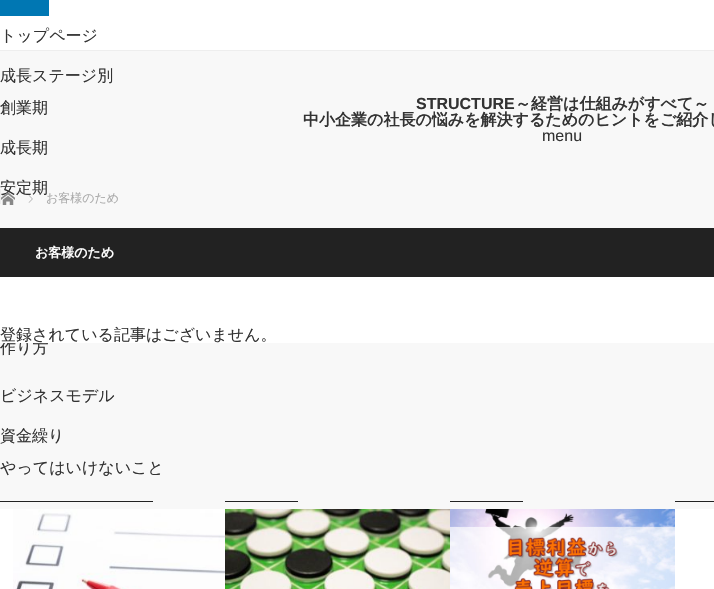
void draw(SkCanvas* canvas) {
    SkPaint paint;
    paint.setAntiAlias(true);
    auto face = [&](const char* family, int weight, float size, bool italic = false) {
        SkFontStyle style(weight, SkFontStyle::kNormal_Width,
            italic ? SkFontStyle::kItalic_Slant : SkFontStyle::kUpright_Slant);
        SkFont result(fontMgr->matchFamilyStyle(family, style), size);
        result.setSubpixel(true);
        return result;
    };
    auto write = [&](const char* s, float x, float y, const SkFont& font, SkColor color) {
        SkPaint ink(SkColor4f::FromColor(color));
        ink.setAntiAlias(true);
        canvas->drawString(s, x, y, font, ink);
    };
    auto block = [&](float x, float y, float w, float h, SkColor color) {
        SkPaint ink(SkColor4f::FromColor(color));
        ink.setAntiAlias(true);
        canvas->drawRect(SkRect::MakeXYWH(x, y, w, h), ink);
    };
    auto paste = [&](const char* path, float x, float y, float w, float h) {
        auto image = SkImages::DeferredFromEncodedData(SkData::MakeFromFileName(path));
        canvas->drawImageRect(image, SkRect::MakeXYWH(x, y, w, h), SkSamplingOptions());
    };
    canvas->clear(SkColorSetRGB(248, 248, 248));
    block(0, 0, 714, 50, SK_ColorWHITE);
    block(0, 50, 714, 1, SkColorSetRGB(238, 238, 238));
    block(0, 0, 49, 16, SkColorSetRGB(0, 119, 179));
    auto kFont1 = face("WenQuanYi Zen Hei", 500, 16);
    write("トップページ", 0, 41, kFont1, SkColorSetRGB(51, 51, 51));
    write("成長ステージ別", 0, 81, kFont1, SkColorSetRGB(51, 51, 51));
    write("創業期", 0, 113, kFont1, SkColorSetRGB(51, 51, 51));
    write("成長期", 0, 153, kFont1, SkColorSetRGB(51, 51, 51));
    write("安定期", 0, 193, kFont1, SkColorSetRGB(51, 51, 51));
    write("作り方", 0, 353, kFont1, SkColorSetRGB(51, 51, 51));
    write("ビジネスモデル", 0, 401, kFont1, SkColorSetRGB(51, 51, 51));
    write("資金繰り", 0, 441, kFont1, SkColorSetRGB(51, 51, 51));
    write("やってはいけないこと", 0, 473, kFont1, SkColorSetRGB(51, 51, 51));
    auto kFont2 = face("Liberation Sans", 700, 16);
    write("STRUCTURE", 416, 109, kFont2, SkColorSetRGB(51, 51, 51));
    auto kFont3 = face("WenQuanYi Zen Hei", 700, 16);
    write("～経営は仕組みがすべて～", 515, 109, kFont3, SkColorSetRGB(51, 51, 51));
    write("中小企業の社長の悩みを解決するためのヒントをご紹介し", 303, 125, kFont3, SkColorSetRGB(51, 51, 51));
    auto kFont4 = face("Liberation Sans", 400, 16);
    write("menu", 542, 141, kFont4, SkColorSetRGB(51, 51, 51));
    block(0, 189, 1, 15, SkColorSetRGB(238, 238, 238));
    paste("pic1.png", 1, 192, 14, 13);
    paste("pic2.png", 28, 195, 5, 8);
    auto kFont5 = face("WenQuanYi Zen Hei", 500, 12);
    write("お客様のため", 46, 202, kFont5, SkColorSetRGB(170, 170, 170));
    block(0, 277, 714, 66, SK_ColorWHITE);
    block(0, 228, 714, 49, SkColorSetRGB(34, 34, 34));
    auto kFont6 = face("WenQuanYi Zen Hei", 700, 13);
    write("お客様のため", 35, 257, kFont6, SK_ColorWHITE);
    write("登録されている記事はございません。", 0, 340, kFont1, SkColorSetRGB(51, 51, 51));
    block(0, 501, 153, 1, SkColorSetRGB(34, 34, 34));
    block(0, 509, 13, 80, SK_ColorWHITE);
    paste("pic3.png", 13, 509, 212, 80);
    block(225, 501, 73, 1, SkColorSetRGB(34, 34, 34));
    paste("pic4.png", 225, 509, 225, 80);
    block(450, 501, 73, 1, SkColorSetRGB(34, 34, 34));
    paste("pic5.png", 450, 509, 225, 80);
    block(675, 501, 39, 1, SkColorSetRGB(34, 34, 34));
    block(675, 509, 39, 80, SK_ColorWHITE);
}
